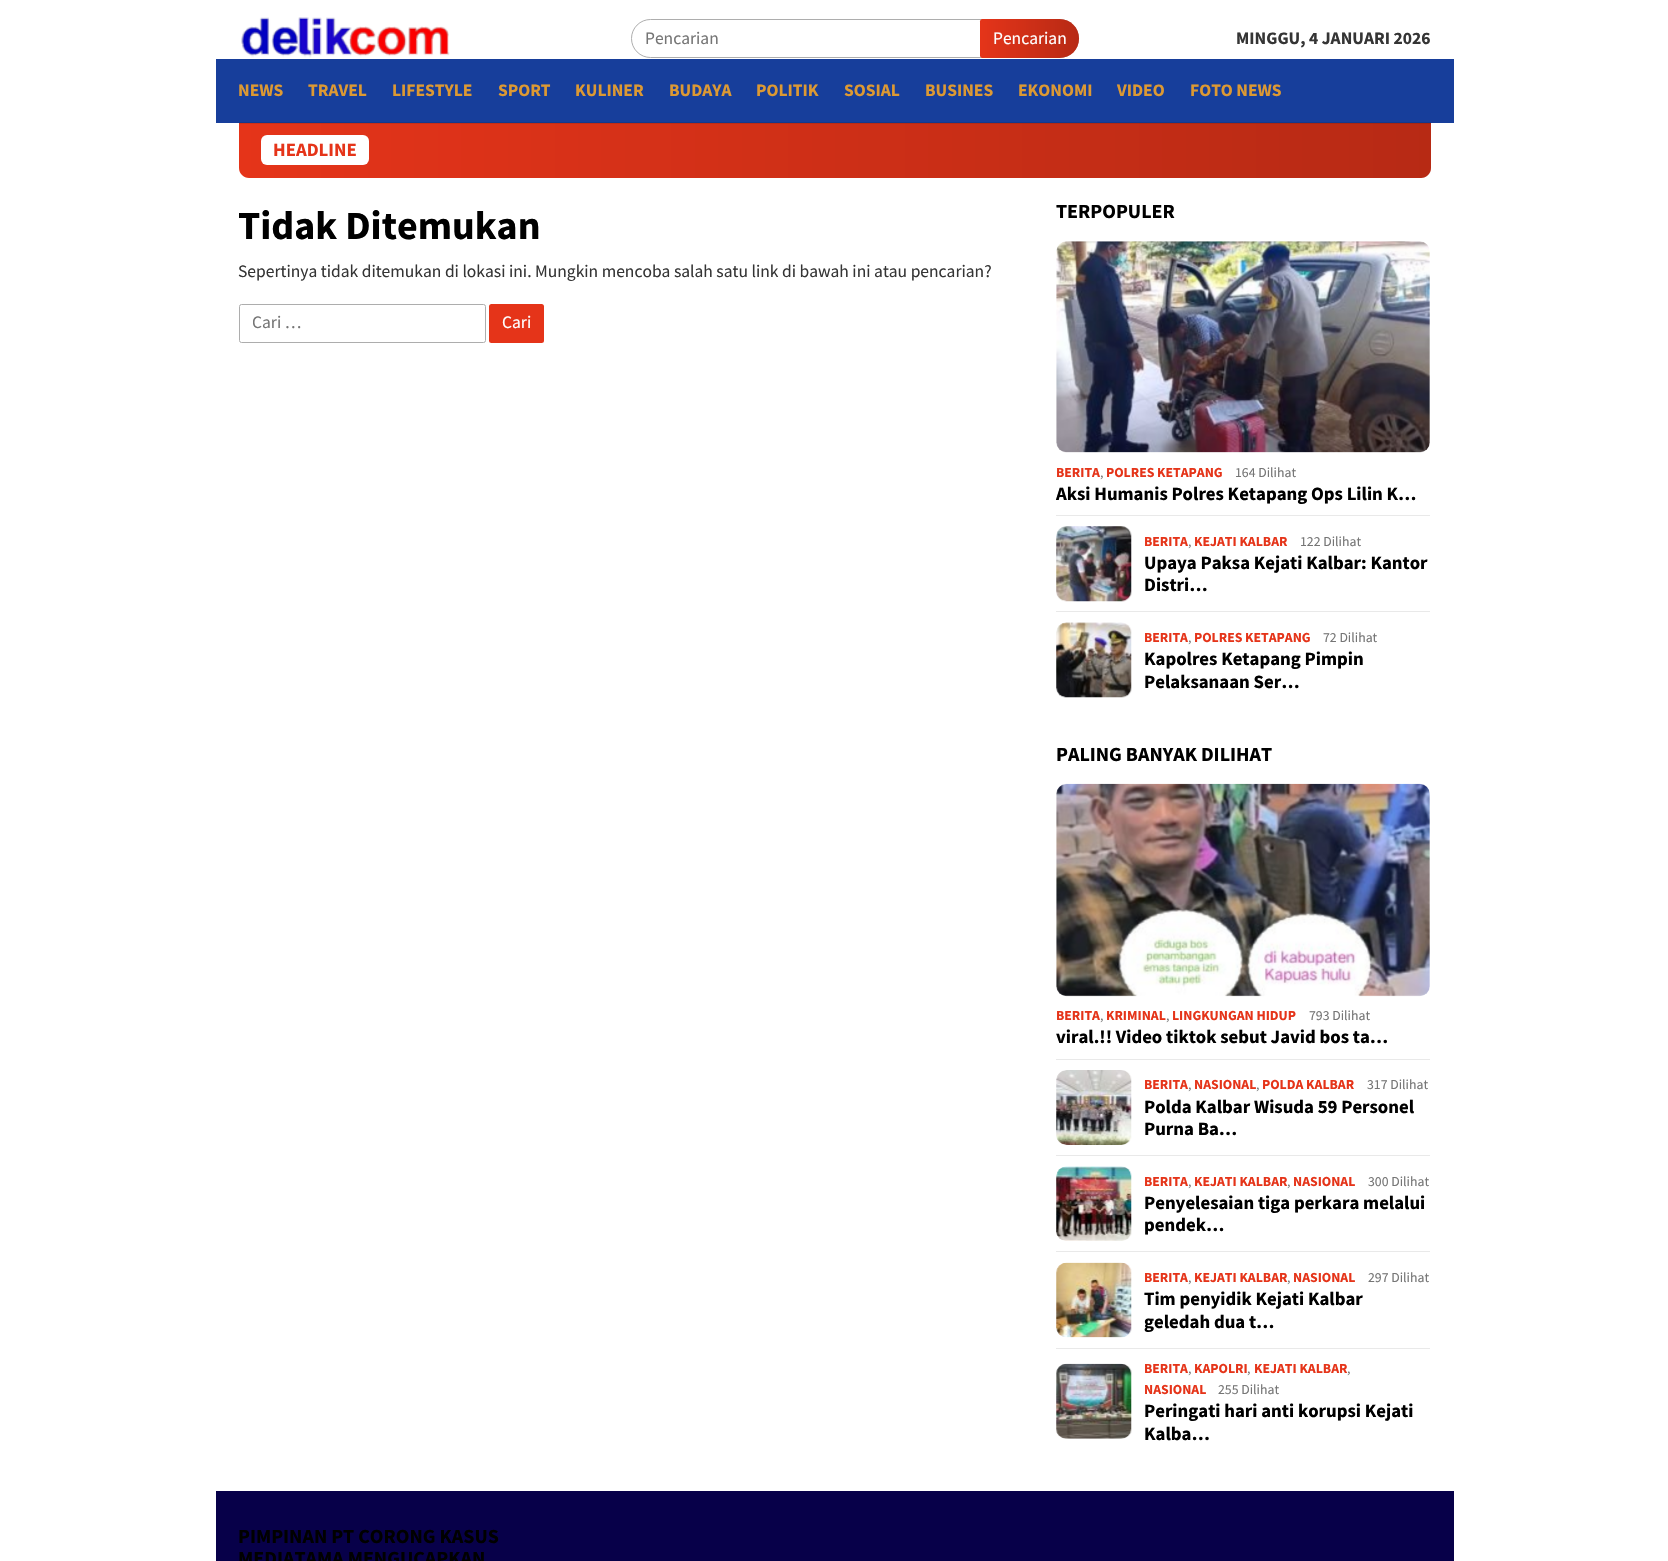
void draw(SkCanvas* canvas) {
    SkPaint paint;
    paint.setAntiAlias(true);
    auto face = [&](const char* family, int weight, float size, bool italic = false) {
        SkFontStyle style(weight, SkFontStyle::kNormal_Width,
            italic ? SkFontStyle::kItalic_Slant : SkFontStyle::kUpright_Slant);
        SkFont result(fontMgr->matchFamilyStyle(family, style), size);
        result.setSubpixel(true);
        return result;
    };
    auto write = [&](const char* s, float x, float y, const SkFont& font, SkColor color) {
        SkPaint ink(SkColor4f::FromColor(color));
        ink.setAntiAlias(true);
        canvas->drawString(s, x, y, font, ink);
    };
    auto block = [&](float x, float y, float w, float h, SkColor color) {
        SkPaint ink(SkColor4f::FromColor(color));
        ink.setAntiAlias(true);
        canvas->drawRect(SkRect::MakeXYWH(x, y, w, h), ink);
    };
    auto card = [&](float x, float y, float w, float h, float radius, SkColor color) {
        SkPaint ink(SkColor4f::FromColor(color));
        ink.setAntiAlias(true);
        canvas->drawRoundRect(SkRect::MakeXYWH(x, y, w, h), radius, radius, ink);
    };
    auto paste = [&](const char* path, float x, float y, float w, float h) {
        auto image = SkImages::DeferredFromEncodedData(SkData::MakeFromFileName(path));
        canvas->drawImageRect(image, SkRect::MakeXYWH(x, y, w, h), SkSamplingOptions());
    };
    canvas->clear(SK_ColorWHITE);
    paste("pic1.png", 241, 17, 209, 41);
    paint.setStyle(SkPaint::kStroke_Style);
    paint.setStrokeWidth(1);
    paint.setColor(SkColorSetRGB(173, 173, 173));
    canvas->drawRoundRect(SkRect::MakeXYWH(631.5f, 19.5f, 447, 38), 19, 19, paint);
    auto kFont1 = face("Source Sans Pro", 400, 17.5f);
    write("Pencarian", 645, 44, kFont1, SkColorSetRGB(117, 117, 117));
    paint.setStyle(SkPaint::kFill_Style);
    paint.setColor(SkColorSetRGB(229, 52, 25));
    canvas->drawPath(SkPathBuilder().moveTo(982.5f, 19).lineTo(1059.5f, 19).cubicTo(1070.5f, 19, 1079, 27.5f, 1079, 38.5f).cubicTo(1079, 49.5f, 1070.5f, 58, 1059.5f, 58).lineTo(982.5f, 58).cubicTo(981, 58, 980, 57, 980, 55.5f).lineTo(980, 21.5f).cubicTo(980, 20, 981, 19, 982.5f, 19).close().detach(), paint);
    {
        const SkColor colors[] = {SkColorSetARGB(0, 0, 0, 0), SkColorSetARGB(51, 0, 0, 0)};
        const float stops[] = {0, 1};
        const SkPoint ends[] = {{980, 38}, {1079, 38}};
        paint.setShader(SkGradientShader::MakeLinear(ends, colors, stops, 2, SkTileMode::kClamp));
        paint.setAlpha(255);
    }
    canvas->drawPath(SkPathBuilder().moveTo(982.5f, 19).lineTo(1059.5f, 19).cubicTo(1070.5f, 19, 1079, 27.5f, 1079, 38.5f).cubicTo(1079, 49.5f, 1070.5f, 58, 1059.5f, 58).lineTo(982.5f, 58).cubicTo(981, 58, 980, 57, 980, 55.5f).lineTo(980, 21.5f).cubicTo(980, 20, 981, 19, 982.5f, 19).close().detach(), paint);
    write("Pencarian", 993, 44, kFont1, SK_ColorWHITE);
    auto kFont2 = face("Source Sans Pro", 700, 17.5f);
    write("MINGGU, 4 JANUARI 2026", 1236, 44, kFont2, SkColorSetRGB(53, 53, 53));
    block(216, 59, 1238, 64, SkColorSetRGB(23, 62, 155));
    paint.setShader(nullptr);
    paint.setColor(SkColorSetRGB(229, 52, 25));
    canvas->drawPath(SkPathBuilder().moveTo(239, 123).lineTo(1431, 123).lineTo(1431, 168).cubicTo(1431, 173.5f, 1426.5f, 178, 1421, 178).lineTo(249, 178).cubicTo(243.5f, 178, 239, 173.5f, 239, 168).close().detach(), paint);
    {
        const SkColor colors[] = {SkColorSetARGB(0, 0, 0, 0), SkColorSetARGB(51, 0, 0, 0)};
        const float stops[] = {0, 1};
        const SkPoint ends[] = {{239, 150}, {1431, 150}};
        paint.setShader(SkGradientShader::MakeLinear(ends, colors, stops, 2, SkTileMode::kClamp));
        paint.setAlpha(255);
    }
    canvas->drawPath(SkPathBuilder().moveTo(239, 123).lineTo(1431, 123).lineTo(1431, 168).cubicTo(1431, 173.5f, 1426.5f, 178, 1421, 178).lineTo(249, 178).cubicTo(243.5f, 178, 239, 173.5f, 239, 168).close().detach(), paint);
    block(239, 122, 1192, 2, SkColorSetARGB(26, 0, 0, 0));
    write("NEWS", 238, 96, kFont2, SkColorSetRGB(221, 153, 51));
    write("TRAVEL", 308, 96, kFont2, SkColorSetRGB(221, 153, 51));
    write("LIFESTYLE", 392, 96, kFont2, SkColorSetRGB(221, 153, 51));
    write("SPORT", 498, 96, kFont2, SkColorSetRGB(221, 153, 51));
    write("KULINER", 575, 96, kFont2, SkColorSetRGB(221, 153, 51));
    write("BUDAYA", 669, 96, kFont2, SkColorSetRGB(221, 153, 51));
    write("POLITIK", 756, 96, kFont2, SkColorSetRGB(221, 153, 51));
    write("SOSIAL", 844, 96, kFont2, SkColorSetRGB(221, 153, 51));
    write("BUSINES", 925, 96, kFont2, SkColorSetRGB(221, 153, 51));
    write("EKONOMI", 1018, 96, kFont2, SkColorSetRGB(221, 153, 51));
    write("VIDEO", 1117, 96, kFont2, SkColorSetRGB(221, 153, 51));
    write("FOTO NEWS", 1190, 96, kFont2, SkColorSetRGB(221, 153, 51));
    card(261, 135, 108, 30, 6, SK_ColorWHITE);
    auto kFont3 = face("Source Sans Pro", 700, 18.75f);
    write("HEADLINE", 273, 156, kFont3, SkColorSetRGB(229, 52, 25));
    auto kFont4 = face("Source Sans Pro", 700, 40);
    write("Tidak Ditemukan", 238, 239, kFont4, SK_ColorBLACK);
    write("Sepertinya tidak ditemukan di lokasi ini. Mungkin mencoba salah satu link di bawah ini atau pencarian?", 238, 277, kFont1, SkColorSetRGB(53, 53, 53));
    paint.setStyle(SkPaint::kStroke_Style);
    paint.setShader(nullptr);
    paint.setColor(SkColorSetRGB(173, 173, 173));
    canvas->drawRoundRect(SkRect::MakeXYWH(239.5f, 304.5f, 246, 38), 2, 2, paint);
    canvas->save();
    canvas->clipRect(SkRect::MakeXYWH(253, 311, 215, 23));
    write("Cari …", 252, 328, kFont1, SkColorSetRGB(117, 117, 117));
    canvas->restore();
    card(489, 304, 55, 39, 2.5f, SkColorSetRGB(229, 52, 25));
    write("Cari", 502, 328, kFont1, SK_ColorWHITE);
    auto kFont5 = face("Source Sans Pro", 700, 20);
    write("TERPOPULER", 1056, 218, kFont5, SK_ColorBLACK);
    block(1056, 515, 374, 1, SkColorSetRGB(233, 233, 233));
    paste("pic2.png", 1056, 241, 374, 212);
    auto kFont6 = face("Source Sans Pro", 700, 13.75f);
    write("BERITA", 1056, 477, kFont6, SkColorSetRGB(229, 52, 25));
    write("POLRES KETAPANG", 1106, 477, kFont6, SkColorSetRGB(229, 52, 25));
    auto kFont7 = face("Source Sans Pro", 400, 13.75f);
    write("164 Dilihat", 1235, 477, kFont7, SkColorSetRGB(117, 117, 117));
    write(",", 1100, 477, kFont7, SkColorSetRGB(117, 117, 117));
    write("Aksi Humanis Polres Ketapang Ops Lilin K…", 1056, 500, kFont3, SK_ColorBLACK);
    block(1056, 611, 374, 1, SkColorSetRGB(233, 233, 233));
    paste("pic3.png", 1056, 526, 76, 76);
    write("BERITA", 1144, 546, kFont6, SkColorSetRGB(229, 52, 25));
    write(",", 1188, 546, kFont7, SkColorSetRGB(117, 117, 117));
    write("KEJATI KALBAR", 1194, 546, kFont6, SkColorSetRGB(229, 52, 25));
    write("122 Dilihat", 1300, 546, kFont7, SkColorSetRGB(117, 117, 117));
    write("Upaya Paksa Kejati Kalbar: Kantor", 1144, 569, kFont3, SK_ColorBLACK);
    write("Distri…", 1144, 591, kFont3, SK_ColorBLACK);
    paste("pic4.png", 1056, 622, 76, 76);
    write("BERITA", 1144, 642, kFont6, SkColorSetRGB(229, 52, 25));
    write("POLRES KETAPANG", 1194, 642, kFont6, SkColorSetRGB(229, 52, 25));
    write("72 Dilihat", 1323, 642, kFont7, SkColorSetRGB(117, 117, 117));
    write(",", 1188, 642, kFont7, SkColorSetRGB(117, 117, 117));
    write("Kapolres Ketapang Pimpin", 1144, 665, kFont3, SK_ColorBLACK);
    write("Pelaksanaan Ser…", 1144, 688, kFont3, SK_ColorBLACK);
    write("PALING BANYAK DILIHAT", 1056, 761, kFont5, SK_ColorBLACK);
    block(1056, 1059, 374, 1, SkColorSetRGB(233, 233, 233));
    paste("pic5.png", 1056, 783, 374, 214);
    write("BERITA", 1056, 1020, kFont6, SkColorSetRGB(229, 52, 25));
    write("KRIMINAL", 1106, 1020, kFont6, SkColorSetRGB(229, 52, 25));
    write("LINGKUNGAN HIDUP", 1172, 1020, kFont6, SkColorSetRGB(229, 52, 25));
    write("793 Dilihat", 1309, 1020, kFont7, SkColorSetRGB(117, 117, 117));
    write(",", 1100, 1020, kFont7, SkColorSetRGB(117, 117, 117));
    write(",", 1166, 1020, kFont7, SkColorSetRGB(117, 117, 117));
    write("viral.!! Video tiktok sebut Javid bos ta…", 1056, 1043, kFont3, SK_ColorBLACK);
    block(1056, 1155, 374, 1, SkColorSetRGB(233, 233, 233));
    paste("pic6.png", 1056, 1070, 76, 75);
    write("BERITA", 1144, 1089, kFont6, SkColorSetRGB(229, 52, 25));
    write("NASIONAL", 1194, 1089, kFont6, SkColorSetRGB(229, 52, 25));
    write("POLDA KALBAR", 1262, 1089, kFont6, SkColorSetRGB(229, 52, 25));
    write("317 Dilihat", 1367, 1089, kFont7, SkColorSetRGB(117, 117, 117));
    write(",", 1188, 1089, kFont7, SkColorSetRGB(117, 117, 117));
    write(",", 1256, 1089, kFont7, SkColorSetRGB(117, 117, 117));
    write("Polda Kalbar Wisuda 59 Personel", 1144, 1113, kFont3, SK_ColorBLACK);
    write("Purna Ba…", 1144, 1135, kFont3, SK_ColorBLACK);
    block(1056, 1251, 374, 1, SkColorSetRGB(233, 233, 233));
    paste("pic7.png", 1056, 1166, 76, 75);
    write("BERITA", 1144, 1186, kFont6, SkColorSetRGB(229, 52, 25));
    write(",", 1188, 1186, kFont7, SkColorSetRGB(117, 117, 117));
    write("KEJATI KALBAR", 1194, 1186, kFont6, SkColorSetRGB(229, 52, 25));
    write(",", 1287, 1186, kFont7, SkColorSetRGB(117, 117, 117));
    write("NASIONAL", 1293, 1186, kFont6, SkColorSetRGB(229, 52, 25));
    write("300 Dilihat", 1368, 1186, kFont7, SkColorSetRGB(117, 117, 117));
    write("Penyelesaian tiga perkara melalui", 1144, 1209, kFont3, SK_ColorBLACK);
    write("pendek…", 1144, 1231, kFont3, SK_ColorBLACK);
    block(1056, 1348, 374, 1, SkColorSetRGB(233, 233, 233));
    paste("pic8.png", 1056, 1262, 76, 76);
    write("BERITA", 1144, 1282, kFont6, SkColorSetRGB(229, 52, 25));
    write(",", 1188, 1282, kFont7, SkColorSetRGB(117, 117, 117));
    write("KEJATI KALBAR", 1194, 1282, kFont6, SkColorSetRGB(229, 52, 25));
    write(",", 1287, 1282, kFont7, SkColorSetRGB(117, 117, 117));
    write("NASIONAL", 1293, 1282, kFont6, SkColorSetRGB(229, 52, 25));
    write("297 Dilihat", 1368, 1282, kFont7, SkColorSetRGB(117, 117, 117));
    write("Tim penyidik Kejati Kalbar", 1144, 1305, kFont3, SK_ColorBLACK);
    write("geledah dua t…", 1144, 1328, kFont3, SK_ColorBLACK);
    paste("pic9.png", 1056, 1363, 76, 76);
    write("BERITA", 1144, 1373, kFont6, SkColorSetRGB(229, 52, 25));
    write(",", 1188, 1373, kFont7, SkColorSetRGB(117, 117, 117));
    write("KAPOLRI", 1194, 1373, kFont6, SkColorSetRGB(229, 52, 25));
    write(",", 1247, 1373, kFont7, SkColorSetRGB(117, 117, 117));
    write("KEJATI KALBAR", 1254, 1373, kFont6, SkColorSetRGB(229, 52, 25));
    write(",", 1347, 1373, kFont7, SkColorSetRGB(117, 117, 117));
    write("NASIONAL", 1144, 1394, kFont6, SkColorSetRGB(229, 52, 25));
    write("255 Dilihat", 1218, 1394, kFont7, SkColorSetRGB(117, 117, 117));
    write("Peringati hari anti korupsi Kejati", 1144, 1417, kFont3, SK_ColorBLACK);
    write("Kalba…", 1144, 1440, kFont3, SK_ColorBLACK);
    block(216, 1491, 1238, 70, SkColorSetRGB(7, 0, 73));
    write("PIMPINAN PT CORONG KASUS", 238, 1543, kFont5, SK_ColorBLACK);
    write("MEDIATAMA MENGUCAPKAN", 238, 1565, kFont5, SK_ColorBLACK);
}
